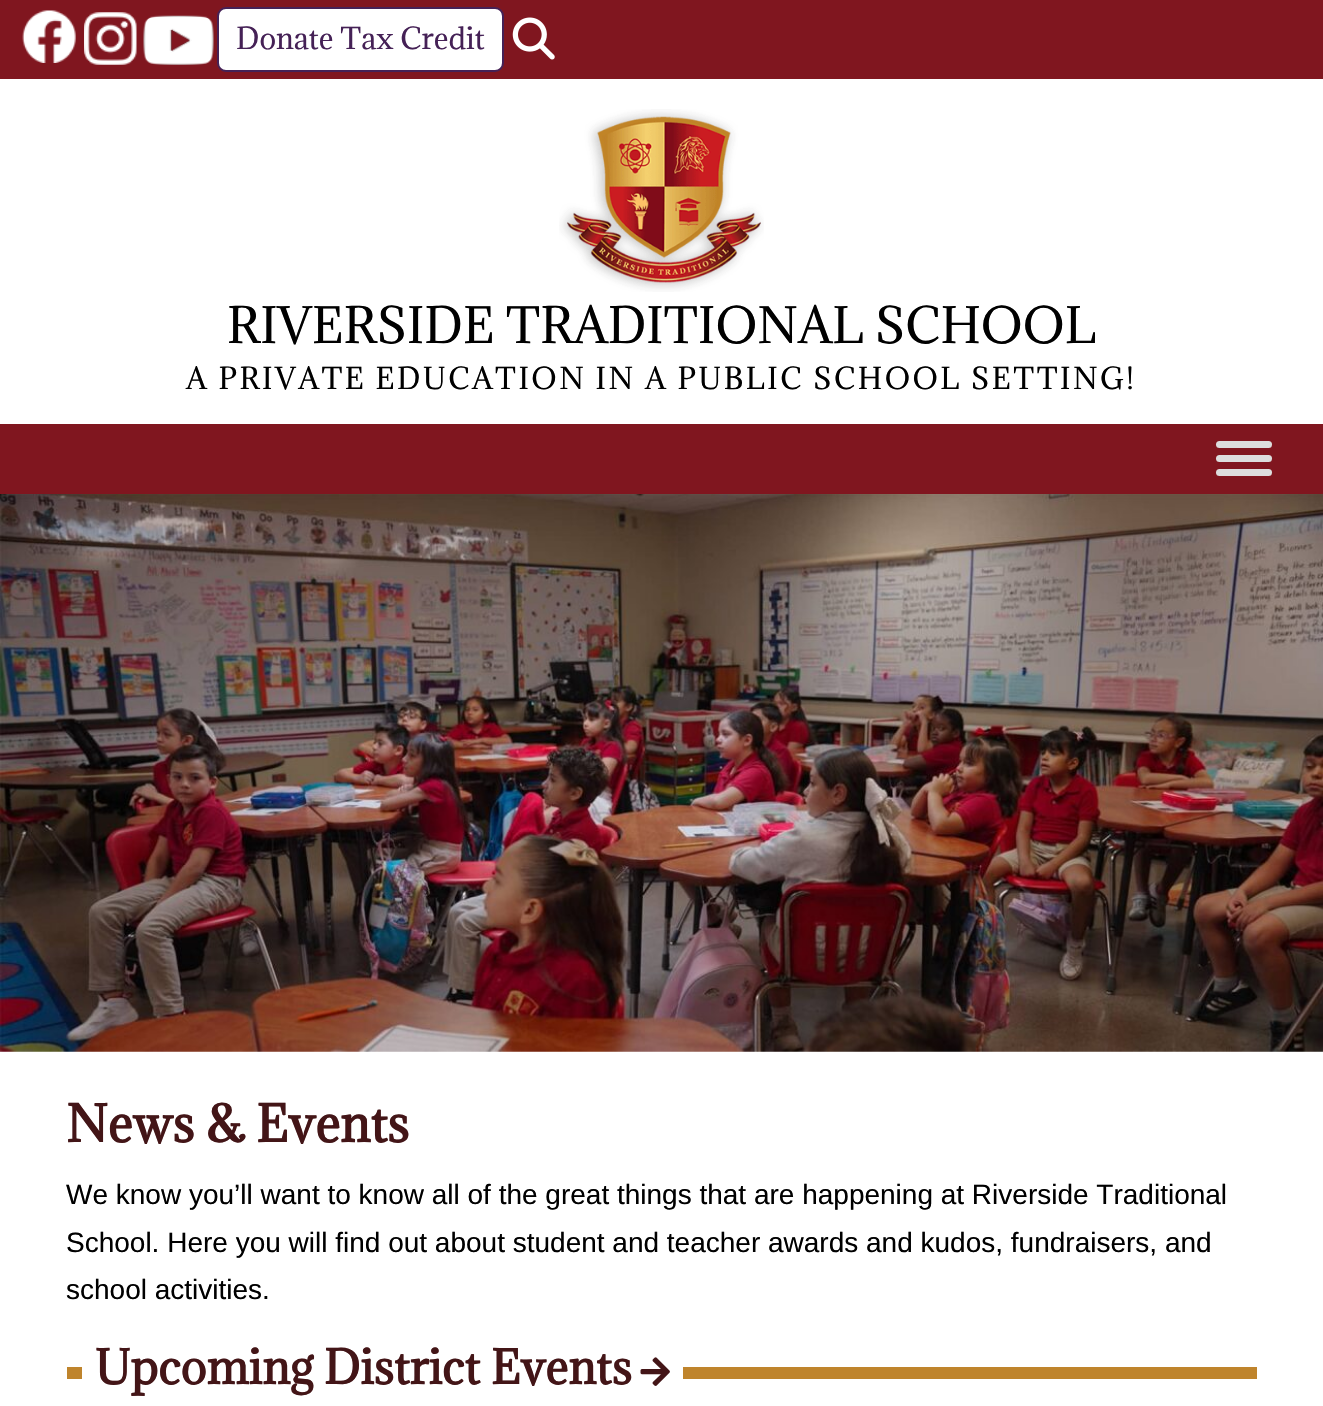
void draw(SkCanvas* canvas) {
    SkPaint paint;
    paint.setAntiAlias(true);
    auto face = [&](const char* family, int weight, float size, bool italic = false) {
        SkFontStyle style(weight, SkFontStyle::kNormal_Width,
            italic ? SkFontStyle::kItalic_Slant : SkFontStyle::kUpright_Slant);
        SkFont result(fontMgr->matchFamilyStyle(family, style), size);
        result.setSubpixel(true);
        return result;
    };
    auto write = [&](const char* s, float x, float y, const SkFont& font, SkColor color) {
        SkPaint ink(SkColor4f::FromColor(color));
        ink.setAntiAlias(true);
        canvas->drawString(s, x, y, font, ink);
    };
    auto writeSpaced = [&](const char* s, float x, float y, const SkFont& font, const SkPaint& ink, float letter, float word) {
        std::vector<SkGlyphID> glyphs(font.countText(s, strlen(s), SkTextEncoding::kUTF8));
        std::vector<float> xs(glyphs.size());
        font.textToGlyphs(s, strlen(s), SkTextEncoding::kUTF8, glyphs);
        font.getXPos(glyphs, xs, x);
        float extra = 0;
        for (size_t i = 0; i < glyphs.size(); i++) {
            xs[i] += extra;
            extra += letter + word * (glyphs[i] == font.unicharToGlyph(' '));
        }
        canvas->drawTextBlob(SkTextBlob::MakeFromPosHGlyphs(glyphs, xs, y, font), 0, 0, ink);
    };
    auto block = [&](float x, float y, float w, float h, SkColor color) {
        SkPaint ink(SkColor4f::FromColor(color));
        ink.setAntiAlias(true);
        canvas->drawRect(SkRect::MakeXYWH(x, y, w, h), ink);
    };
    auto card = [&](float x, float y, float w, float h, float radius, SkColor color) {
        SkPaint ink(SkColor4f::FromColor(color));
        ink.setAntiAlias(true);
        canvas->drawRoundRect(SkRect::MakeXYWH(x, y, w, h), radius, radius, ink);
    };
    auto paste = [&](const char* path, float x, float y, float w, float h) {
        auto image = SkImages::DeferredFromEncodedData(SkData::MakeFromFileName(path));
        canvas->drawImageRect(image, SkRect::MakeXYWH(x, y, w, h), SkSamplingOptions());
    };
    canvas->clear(SK_ColorWHITE);
    block(0, 0, 1323, 79, SkColorSetRGB(128, 22, 31));
    paste("pic1.png", 22, 10, 54, 53);
    paste("pic2.png", 84, 12, 53, 53);
    paste("pic3.png", 143, 15, 71, 50);
    paint.setColor(SK_ColorWHITE);
    canvas->drawRoundRect(SkRect::MakeXYWH(218, 8, 285, 63), 8, 8, paint);
    paint.setStyle(SkPaint::kStroke_Style);
    paint.setStrokeWidth(2);
    paint.setColor(SkColorSetRGB(69, 33, 86));
    canvas->drawRoundRect(SkRect::MakeXYWH(218, 8, 285, 63), 8, 8, paint);
    auto kFont1 = face("Adamina", 400, 28);
    write("Donate Tax Credit", 236, 49, kFont1, SkColorSetRGB(69, 33, 86));
    paste("pic4.png", 512, 17, 43, 43);
    paste("pic5.png", 559, 109, 205, 183);
    auto kFont2 = face("Adamina", 400, 46.25f);
    write("RIVERSIDE TRADITIONAL SCHOOL", 227, 343, kFont2, SK_ColorBLACK);
    paint.setStyle(SkPaint::kFill_Style);
    paint.setColor(SK_ColorBLACK);
    writeSpaced("A PRIVATE EDUCATION IN A PUBLIC SCHOOL SETTING!", 186, 389, kFont1, paint, 2.45f, 0);
    block(0, 424, 1323, 70, SkColorSetRGB(128, 22, 31));
    card(1216, 441, 56, 7, 3.5f, SkColorSetRGB(221, 221, 221));
    card(1216, 455, 56, 7, 3.5f, SkColorSetRGB(221, 221, 221));
    card(1216, 469, 56, 7, 3.5f, SkColorSetRGB(221, 221, 221));
    paste("pic6.png", 0, 494, 1323, 558);
    auto kFont3 = face("Adamina", 700, 47.5f);
    write("News & Events", 66, 1142, kFont3, SkColorSetRGB(67, 21, 23));
    auto kFont4 = face("Liberation Sans", 400, 28);
    write("We know you’ll want to know all of the great things that are happening at Riverside Traditional", 66, 1204, kFont4, SK_ColorBLACK);
    write("School. Here you will find out about student and teacher awards and kudos, fundraisers, and", 66, 1252, kFont4, SK_ColorBLACK);
    write("school activities.", 66, 1299, kFont4, SK_ColorBLACK);
    block(67, 1367, 15, 12, SkColorSetRGB(191, 132, 44));
    auto kFont5 = face("Adamina", 700, 43.75f);
    write("Upcoming District Events", 95, 1384, kFont5, SkColorSetRGB(67, 21, 23));
    paste("pic7.png", 640, 1357, 30, 29);
    block(683, 1367, 574, 12, SkColorSetRGB(191, 132, 44));
}
